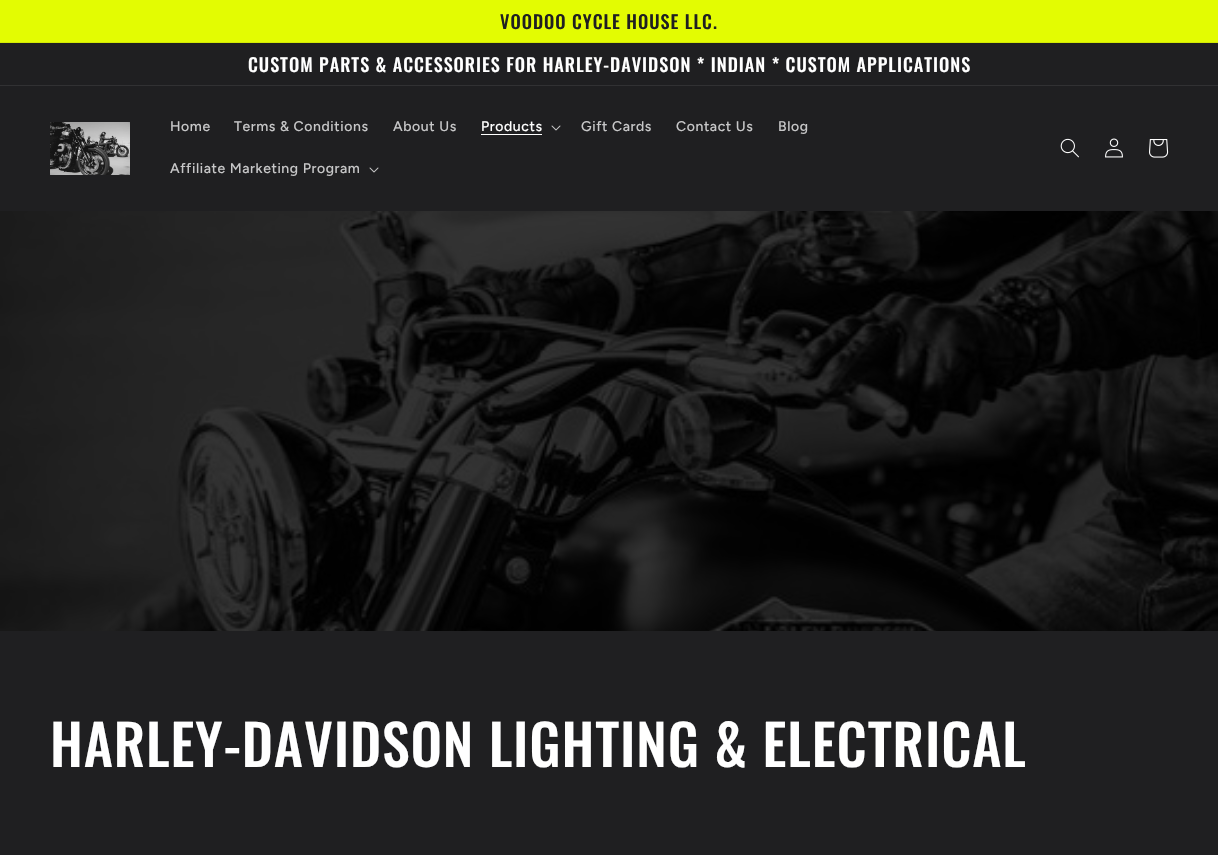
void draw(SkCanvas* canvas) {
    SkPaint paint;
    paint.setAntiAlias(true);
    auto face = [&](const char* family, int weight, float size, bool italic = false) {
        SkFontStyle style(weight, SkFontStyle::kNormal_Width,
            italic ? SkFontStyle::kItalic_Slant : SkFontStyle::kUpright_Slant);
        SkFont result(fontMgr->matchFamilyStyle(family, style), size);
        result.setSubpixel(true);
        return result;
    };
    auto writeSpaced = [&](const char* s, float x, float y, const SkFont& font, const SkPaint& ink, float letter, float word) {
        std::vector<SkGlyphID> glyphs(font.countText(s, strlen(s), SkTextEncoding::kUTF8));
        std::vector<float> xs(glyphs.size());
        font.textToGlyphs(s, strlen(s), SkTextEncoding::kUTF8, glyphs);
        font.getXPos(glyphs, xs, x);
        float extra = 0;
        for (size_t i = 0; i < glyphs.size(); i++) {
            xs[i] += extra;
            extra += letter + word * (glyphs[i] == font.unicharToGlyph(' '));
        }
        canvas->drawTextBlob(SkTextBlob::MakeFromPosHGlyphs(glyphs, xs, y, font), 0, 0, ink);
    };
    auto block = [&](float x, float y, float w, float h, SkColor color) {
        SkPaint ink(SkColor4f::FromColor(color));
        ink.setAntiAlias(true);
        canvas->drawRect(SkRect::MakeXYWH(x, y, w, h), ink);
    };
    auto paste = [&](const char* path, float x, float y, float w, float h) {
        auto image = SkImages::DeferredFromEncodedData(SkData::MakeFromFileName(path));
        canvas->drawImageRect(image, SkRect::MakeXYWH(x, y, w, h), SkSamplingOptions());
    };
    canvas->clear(SkColorSetRGB(31, 31, 33));
    block(0, 0, 1218, 42, SkColorSetRGB(227, 252, 2));
    block(0, 42, 1218, 1, SkColorSetRGB(211, 234, 4));
    auto kFont1 = face("Oswald", 500, 18.2f);
    paint.setColor(SkColorSetRGB(31, 31, 33));
    writeSpaced("VOODOO CYCLE HOUSE LLC.", 500, 29, kFont1, paint, 1, 0);
    block(0, 85, 1218, 1, SkColorSetRGB(49, 49, 51));
    paint.setColor(SK_ColorWHITE);
    writeSpaced("CUSTOM PARTS & ACCESSORIES FOR HARLEY-DAVIDSON * INDIAN * CUSTOM APPLICATIONS", 248, 72, kFont1, paint, 1, 0);
    paste("pic1.png", 50, 122, 80, 53);
    auto kFont2 = face("Figtree", 500, 14);
    paint.setColor(SkColorSetRGB(199, 199, 200));
    writeSpaced("Home", 170, 131, kFont2, paint, 0.6f, 0);
    writeSpaced("Terms & Conditions", 234, 131, kFont2, paint, 0.6f, 0);
    writeSpaced("About Us", 393, 131, kFont2, paint, 0.6f, 0);
    paint.setColor(SK_ColorWHITE);
    writeSpaced("Products", 481, 131, kFont2, paint, 0.6f, 0);
    block(481, 134, 61, 1, SK_ColorWHITE);
    paste("pic2.png", 551, 125, 10, 6);
    paint.setColor(SkColorSetRGB(199, 199, 200));
    writeSpaced("Gift Cards", 581, 131, kFont2, paint, 0.6f, 0);
    writeSpaced("Contact Us", 676, 131, kFont2, paint, 0.6f, 0);
    writeSpaced("Blog", 778, 131, kFont2, paint, 0.6f, 0);
    writeSpaced("Affiliate Marketing Program", 170, 173, kFont2, paint, 0.6f, 0);
    paste("pic2.png", 369, 167, 10, 6);
    paste("pic3.png", 1060, 138, 19, 20);
    paste("pic4.png", 1105, 138, 18, 20);
    paste("pic5.png", 1149, 139, 20, 19);
    paste("pic6.png", 0, 211, 1218, 420);
    auto kFont3 = face("Oswald", 500, 56);
    paint.setColor(SK_ColorWHITE);
    writeSpaced("HARLEY-DAVIDSON LIGHTING & ELECTRICAL", 50, 767, kFont3, paint, 0.85f, 0);
}
